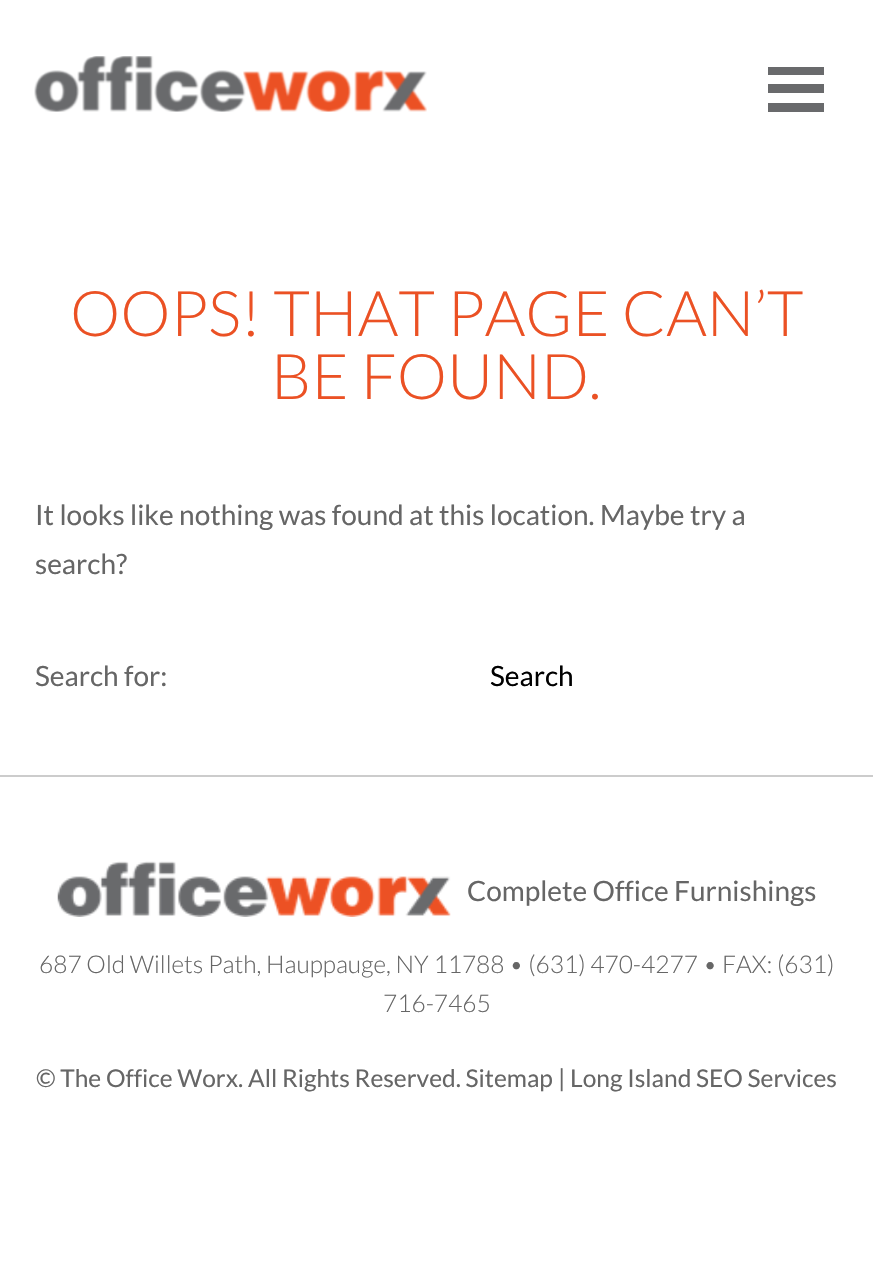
void draw(SkCanvas* canvas) {
    SkPaint paint;
    paint.setAntiAlias(true);
    auto face = [&](const char* family, int weight, float size, bool italic = false) {
        SkFontStyle style(weight, SkFontStyle::kNormal_Width,
            italic ? SkFontStyle::kItalic_Slant : SkFontStyle::kUpright_Slant);
        SkFont result(fontMgr->matchFamilyStyle(family, style), size);
        result.setSubpixel(true);
        return result;
    };
    auto write = [&](const char* s, float x, float y, const SkFont& font, SkColor color) {
        SkPaint ink(SkColor4f::FromColor(color));
        ink.setAntiAlias(true);
        canvas->drawString(s, x, y, font, ink);
    };
    auto block = [&](float x, float y, float w, float h, SkColor color) {
        SkPaint ink(SkColor4f::FromColor(color));
        ink.setAntiAlias(true);
        canvas->drawRect(SkRect::MakeXYWH(x, y, w, h), ink);
    };
    auto paste = [&](const char* path, float x, float y, float w, float h) {
        auto image = SkImages::DeferredFromEncodedData(SkData::MakeFromFileName(path));
        canvas->drawImageRect(image, SkRect::MakeXYWH(x, y, w, h), SkSamplingOptions());
    };
    canvas->clear(SK_ColorWHITE);
    paste("pic1.png", 34, 56, 393, 56);
    block(768, 84, 56, 9, SkColorSetRGB(105, 106, 108));
    block(768, 67, 56, 8, SkColorSetRGB(105, 106, 108));
    block(768, 103, 56, 9, SkColorSetRGB(105, 106, 108));
    auto kFont1 = face("Lato", 300, 63);
    write("OOPS! THAT PAGE CAN’T", 70, 336, kFont1, SkColorSetRGB(235, 81, 36));
    write("BE FOUND.", 271, 399, kFont1, SkColorSetRGB(235, 81, 36));
    auto kFont2 = face("Lato", 400, 28);
    write("It looks like nothing was found at this location. Maybe try a", 35, 525, kFont2, SkColorSetRGB(102, 102, 102));
    write("search?", 35, 574, kFont2, SkColorSetRGB(102, 102, 102));
    write("Search for:", 35, 686, kFont2, SkColorSetRGB(102, 102, 102));
    write("Search", 490, 686, kFont2, SK_ColorBLACK);
    block(0, 775, 873, 2, SkColorSetRGB(204, 204, 204));
    paste("pic2.png", 57, 861, 394, 56);
    write("Complete Office Furnishings", 467, 901, kFont2, SkColorSetRGB(102, 102, 102));
    auto kFont3 = face("Lato", 300, 24.5f);
    write("687 Old Willets Path, Hauppauge, NY 11788 • (631) 470-4277", 39, 973, kFont3, SkColorSetRGB(102, 102, 102));
    write("• FAX: (631)", 703, 973, kFont3, SkColorSetRGB(102, 102, 102));
    write("716-7465", 383, 1012, kFont3, SkColorSetRGB(102, 102, 102));
    auto kFont4 = face("Lato", 400, 24.5f);
    write("© The Office Worx. All Rights Reserved. Sitemap", 36, 1087, kFont4, SkColorSetRGB(102, 102, 102));
    write("| Long Island SEO Services", 558, 1087, kFont4, SkColorSetRGB(102, 102, 102));
}
